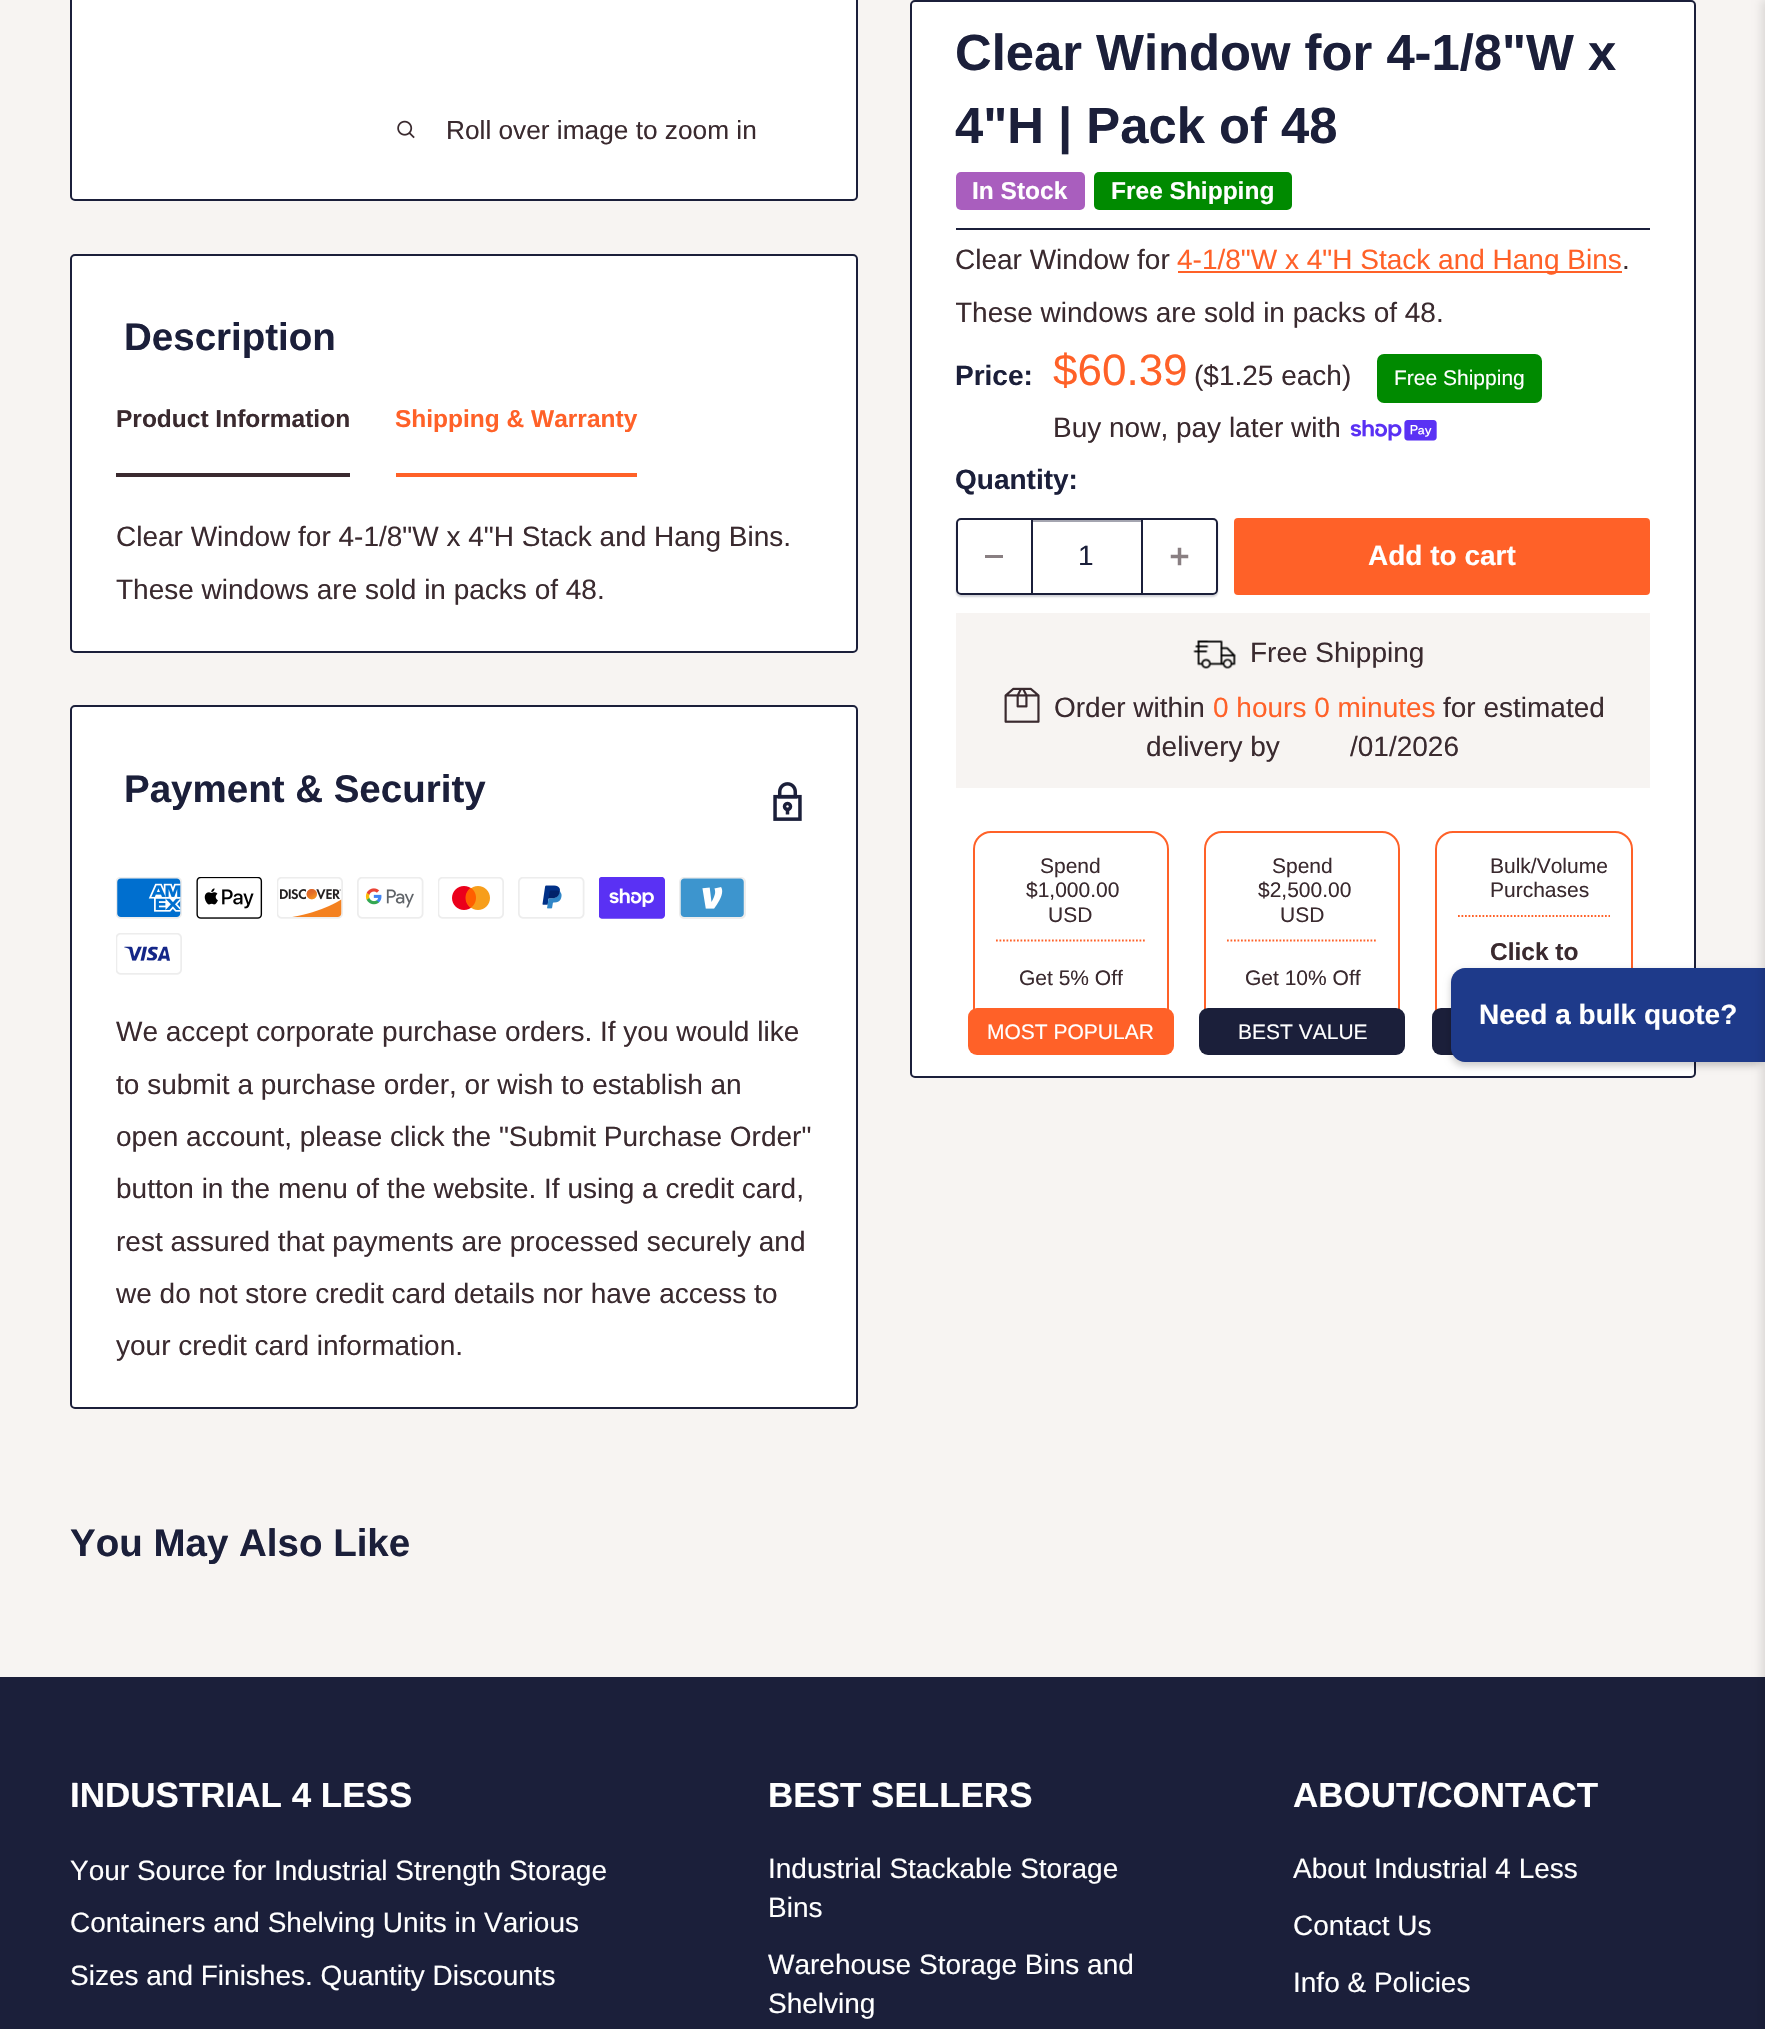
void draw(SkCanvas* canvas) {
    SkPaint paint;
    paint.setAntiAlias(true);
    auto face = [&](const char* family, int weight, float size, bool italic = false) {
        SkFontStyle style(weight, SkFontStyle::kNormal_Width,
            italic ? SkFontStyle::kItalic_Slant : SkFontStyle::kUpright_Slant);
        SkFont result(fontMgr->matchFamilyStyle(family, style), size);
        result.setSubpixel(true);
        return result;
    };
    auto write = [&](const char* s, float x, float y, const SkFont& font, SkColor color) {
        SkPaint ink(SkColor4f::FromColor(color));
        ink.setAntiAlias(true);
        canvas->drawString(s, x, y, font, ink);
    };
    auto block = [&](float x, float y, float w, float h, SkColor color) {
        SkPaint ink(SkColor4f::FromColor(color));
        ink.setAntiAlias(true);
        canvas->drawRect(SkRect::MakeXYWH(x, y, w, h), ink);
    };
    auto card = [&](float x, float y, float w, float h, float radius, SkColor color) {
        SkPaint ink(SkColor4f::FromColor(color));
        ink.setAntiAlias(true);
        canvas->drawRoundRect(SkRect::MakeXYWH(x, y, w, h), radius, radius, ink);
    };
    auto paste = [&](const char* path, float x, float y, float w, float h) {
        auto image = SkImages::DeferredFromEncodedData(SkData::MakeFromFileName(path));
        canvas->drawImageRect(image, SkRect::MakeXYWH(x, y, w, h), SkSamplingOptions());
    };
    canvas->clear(SkColorSetRGB(247, 244, 242));
    paint.setColor(SK_ColorWHITE);
    canvas->drawRoundRect(SkRect::MakeXYWH(71, -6, 786, 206), 4, 4, paint);
    paint.setStyle(SkPaint::kStroke_Style);
    paint.setStrokeWidth(2);
    paint.setColor(SkColorSetRGB(27, 31, 58));
    canvas->drawRoundRect(SkRect::MakeXYWH(71, -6, 786, 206), 4, 4, paint);
    paste("pic1.png", 397, 120, 18, 19);
    auto kFont1 = face("Liberation Sans", 400, 26.25f);
    write("Roll over image to zoom in", 446, 139, kFont1, SkColorSetRGB(58, 42, 47));
    paint.setStyle(SkPaint::kFill_Style);
    paint.setColor(SK_ColorWHITE);
    canvas->drawRoundRect(SkRect::MakeXYWH(911, 1, 784, 1076), 4, 4, paint);
    paint.setStyle(SkPaint::kStroke_Style);
    paint.setColor(SkColorSetRGB(27, 31, 58));
    canvas->drawRoundRect(SkRect::MakeXYWH(911, 1, 784, 1076), 4, 4, paint);
    auto kFont2 = face("Liberation Sans", 700, 50.75f);
    write("Clear Window for 4-1/8\"W x", 955, 70, kFont2, SkColorSetRGB(27, 31, 58));
    write("4\"H | Pack of 48", 955, 143, kFont2, SkColorSetRGB(27, 31, 58));
    card(956, 172, 129, 38, 5, SkColorSetRGB(169, 94, 190));
    auto kFont3 = face("Liberation Sans", 700, 24.5f);
    write("In Stock", 972, 199, kFont3, SK_ColorWHITE);
    card(1094, 172, 198, 38, 5, SkColorSetRGB(0, 138, 0));
    write("Free Shipping", 1111, 199, kFont3, SK_ColorWHITE);
    block(956, 228, 694, 2, SkColorSetRGB(27, 31, 58));
    auto kFont4 = face("Liberation Sans", 400, 28);
    write("Clear Window for", 955, 269, kFont4, SkColorSetRGB(58, 42, 47));
    block(1178, 271, 444, 2, SkColorSetRGB(255, 97, 40));
    write("4-1/8\"W x 4\"H Stack and Hang Bins", 1177, 269, kFont4, SkColorSetRGB(255, 97, 40));
    write(".", 1622, 269, kFont4, SkColorSetRGB(58, 42, 47));
    canvas->save();
    canvas->clipRect(SkRect::MakeXYWH(956, 247, 694, 93));
    write("These windows are sold in packs of 48.", 955, 322, kFont4, SkColorSetRGB(58, 42, 47));
    canvas->restore();
    auto kFont5 = face("Liberation Sans", 700, 28);
    write("Price:", 955, 385, kFont5, SkColorSetRGB(27, 31, 58));
    auto kFont6 = face("Liberation Sans", 400, 44);
    write("$60.39", 1053, 385, kFont6, SkColorSetRGB(255, 97, 40));
    write("($1.25 each)", 1194, 385, kFont4, SkColorSetRGB(58, 42, 47));
    card(1377, 354, 165, 49, 7, SkColorSetRGB(0, 138, 0));
    auto kFont7 = face("Liberation Sans", 400, 21);
    write("Free Shipping", 1394, 385, kFont7, SK_ColorWHITE);
    write("Buy now, pay later with", 1053, 437, kFont4, SkColorSetRGB(58, 42, 47));
    paste("pic2.png", 1350, 420, 87, 21);
    write("Quantity:", 955, 489, kFont5, SkColorSetRGB(27, 31, 58));
    canvas->save();
    canvas->clipPath(SkPathBuilder(SkPathFillType::kEvenOdd).moveTo(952, 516).lineTo(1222, 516).lineTo(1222, 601).lineTo(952, 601).close().moveTo(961, 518).lineTo(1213, 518).cubicTo(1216, 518, 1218, 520, 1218, 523).lineTo(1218, 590).cubicTo(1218, 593, 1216, 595, 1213, 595).lineTo(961, 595).cubicTo(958, 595, 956, 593, 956, 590).lineTo(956, 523).cubicTo(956, 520, 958, 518, 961, 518).close().detach(), true);
    paint.setStyle(SkPaint::kFill_Style);
    paint.setColor(SkColorSetARGB(51, 27, 31, 58));
    paint.setMaskFilter(SkMaskFilter::MakeBlur(kNormal_SkBlurStyle, 1));
    canvas->drawRoundRect(SkRect::MakeXYWH(956, 520, 262, 77), 5, 5, paint);
    paint.setMaskFilter(nullptr);
    canvas->restore();
    paint.setStyle(SkPaint::kStroke_Style);
    paint.setColor(SkColorSetRGB(27, 31, 58));
    canvas->drawRoundRect(SkRect::MakeXYWH(957, 519, 260, 75), 4, 4, paint);
    block(985, 555, 18, 3, SkColorSetRGB(137, 127, 130));
    block(1033, 520, 108, 2, SkColorSetRGB(164, 165, 176));
    block(1141, 520, 2, 73, SkColorSetRGB(27, 31, 58));
    block(1031, 520, 2, 73, SkColorSetRGB(27, 31, 58));
    write("1", 1078, 565, kFont4, SkColorSetRGB(27, 31, 58));
    paste("pic3.png", 1170, 547, 19, 19);
    card(1234, 518, 416, 77, 4, SkColorSetRGB(255, 97, 40));
    write("Add to cart", 1368, 565, kFont5, SK_ColorWHITE);
    block(956, 613, 694, 175, SkColorSetRGB(247, 244, 242));
    paste("pic4.png", 1193, 640, 43, 29);
    write("Free Shipping", 1250, 662, kFont4, SkColorSetRGB(58, 42, 47));
    paste("pic5.png", 1004, 687, 36, 36);
    write("Order within", 1054, 717, kFont4, SkColorSetRGB(58, 42, 47));
    write("0 hours 0 minutes", 1213, 717, kFont4, SkColorSetRGB(255, 97, 40));
    write("for estimated", 1443, 717, kFont4, SkColorSetRGB(58, 42, 47));
    write("delivery by", 1146, 756, kFont4, SkColorSetRGB(58, 42, 47));
    write("/01/2026", 1350, 756, kFont4, SkColorSetRGB(58, 42, 47));
    paint.setColor(SkColorSetRGB(255, 97, 40));
    canvas->drawRoundRect(SkRect::MakeXYWH(974, 832, 194, 208), 17, 17, paint);
    paint.setStrokeWidth(1.8f);
    paint.setPathEffect(SkDashPathEffect::Make({{1.75f, 1.75f}}, 0));
    canvas->drawPath(SkPathBuilder().moveTo(996, 940.5f).lineTo(1146, 940.5f).detach(), paint);
    paint.setPathEffect(nullptr);
    write("Spend", 1040, 873, kFont7, SkColorSetRGB(58, 42, 47));
    write("$1,000.00", 1026, 897, kFont7, SkColorSetRGB(58, 42, 47));
    write("USD", 1048, 922, kFont7, SkColorSetRGB(58, 42, 47));
    write("Get 5% Off", 1019, 985, kFont7, SkColorSetRGB(58, 42, 47));
    card(968, 1008, 206, 47, 9, SkColorSetRGB(255, 97, 40));
    write("MOST POPULAR", 987, 1039, kFont7, SK_ColorWHITE);
    paint.setStrokeWidth(2);
    canvas->drawRoundRect(SkRect::MakeXYWH(1205, 832, 194, 208), 17, 17, paint);
    paint.setStrokeWidth(1.8f);
    paint.setPathEffect(SkDashPathEffect::Make({{1.75f, 1.75f}}, 0));
    canvas->drawPath(SkPathBuilder().moveTo(1227, 940.5f).lineTo(1377, 940.5f).detach(), paint);
    paint.setPathEffect(nullptr);
    write("Spend", 1272, 873, kFont7, SkColorSetRGB(58, 42, 47));
    write("$2,500.00", 1258, 897, kFont7, SkColorSetRGB(58, 42, 47));
    write("USD", 1280, 922, kFont7, SkColorSetRGB(58, 42, 47));
    write("Get 10% Off", 1245, 985, kFont7, SkColorSetRGB(58, 42, 47));
    card(1199, 1008, 206, 47, 9, SkColorSetRGB(27, 31, 58));
    write("BEST VALUE", 1238, 1039, kFont7, SK_ColorWHITE);
    paint.setStrokeWidth(2);
    canvas->drawRoundRect(SkRect::MakeXYWH(1436, 832, 196, 208), 17, 17, paint);
    paint.setStrokeWidth(1.8f);
    paint.setPathEffect(SkDashPathEffect::Make({{1.75f, 1.75f}}, 0));
    canvas->drawPath(SkPathBuilder().moveTo(1458, 916).lineTo(1610, 916).detach(), paint);
    paint.setPathEffect(nullptr);
    write("Bulk/Volume", 1490, 873, kFont7, SkColorSetRGB(58, 42, 47));
    write("Purchases", 1490, 897, kFont7, SkColorSetRGB(58, 42, 47));
    write("Click to", 1490, 960, kFont3, SkColorSetRGB(58, 42, 47));
    card(1432, 1008, 206, 47, 9, SkColorSetRGB(27, 31, 58));
    paint.setStyle(SkPaint::kFill_Style);
    paint.setColor(SK_ColorWHITE);
    canvas->drawRoundRect(SkRect::MakeXYWH(71, 255, 786, 397), 4, 4, paint);
    paint.setStyle(SkPaint::kStroke_Style);
    paint.setStrokeWidth(2);
    paint.setColor(SkColorSetRGB(27, 31, 58));
    canvas->drawRoundRect(SkRect::MakeXYWH(71, 255, 786, 397), 4, 4, paint);
    auto kFont8 = face("Liberation Sans", 700, 38.5f);
    write("Description", 124, 350, kFont8, SkColorSetRGB(27, 31, 58));
    block(116, 473, 234, 4, SkColorSetRGB(58, 42, 47));
    write("Product Information", 116, 427, kFont3, SkColorSetRGB(58, 42, 47));
    block(396, 473, 241, 4, SkColorSetRGB(255, 97, 40));
    write("Shipping & Warranty", 395, 427, kFont3, SkColorSetRGB(255, 97, 40));
    write("Clear Window for 4-1/8\"W x 4\"H Stack and Hang Bins.", 116, 546, kFont4, SkColorSetRGB(58, 42, 47));
    write("These windows are sold in packs of 48.", 116, 599, kFont4, SkColorSetRGB(58, 42, 47));
    paint.setStyle(SkPaint::kFill_Style);
    paint.setColor(SK_ColorWHITE);
    canvas->drawRoundRect(SkRect::MakeXYWH(71, 706, 786, 702), 4, 4, paint);
    paint.setStyle(SkPaint::kStroke_Style);
    paint.setColor(SkColorSetRGB(27, 31, 58));
    canvas->drawRoundRect(SkRect::MakeXYWH(71, 706, 786, 702), 4, 4, paint);
    write("Payment & Security", 124, 802, kFont8, SkColorSetRGB(27, 31, 58));
    paste("pic6.png", 773, 782, 29, 39);
    paste("pic7.png", 116, 877, 66, 42);
    paste("pic8.png", 196, 877, 67, 42);
    paste("pic9.png", 277, 877, 66, 42);
    paste("pic10.png", 357, 877, 67, 42);
    paste("pic11.png", 438, 877, 66, 42);
    paste("pic12.png", 518, 877, 67, 42);
    paste("pic13.png", 599, 877, 66, 42);
    paste("pic14.png", 679, 877, 67, 42);
    paste("pic15.png", 116, 933, 66, 42);
    write("We accept corporate purchase orders. If you would like", 116, 1041, kFont4, SkColorSetRGB(58, 42, 47));
    write("to submit a purchase order, or wish to establish an", 116, 1094, kFont4, SkColorSetRGB(58, 42, 47));
    write("open account, please click the \"Submit Purchase Order\"", 116, 1146, kFont4, SkColorSetRGB(58, 42, 47));
    write("button in the menu of the website. If using a credit card,", 116, 1198, kFont4, SkColorSetRGB(58, 42, 47));
    write("rest assured that payments are processed securely and", 116, 1251, kFont4, SkColorSetRGB(58, 42, 47));
    write("we do not store credit card details nor have access to", 116, 1303, kFont4, SkColorSetRGB(58, 42, 47));
    write("your credit card information.", 116, 1355, kFont4, SkColorSetRGB(58, 42, 47));
    write("You May Also Like", 70, 1556, kFont8, SkColorSetRGB(27, 31, 58));
    paint.setStyle(SkPaint::kFill_Style);
    paint.setColor(SkColorSetARGB(51, 0, 0, 0));
    paint.setMaskFilter(SkMaskFilter::MakeBlur(kNormal_SkBlurStyle, 3.5f));
    canvas->drawRoundRect(SkRect::MakeXYWH(1451, 971, 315, 95), 14, 14, paint);
    paint.setMaskFilter(nullptr);
    paint.setColor(SkColorSetRGB(30, 58, 138));
    canvas->drawPath(SkPathBuilder().moveTo(1465, 968).lineTo(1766, 968).lineTo(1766, 1062).lineTo(1465, 1062).cubicTo(1457.5f, 1062, 1451, 1055.5f, 1451, 1048).lineTo(1451, 982).cubicTo(1451, 974.5f, 1457.5f, 968, 1465, 968).close().detach(), paint);
    block(0, 1677, 1765, 352, SkColorSetRGB(27, 31, 58));
    paint.setColor(SkColorSetARGB(31, 0, 0, 0));
    paint.setMaskFilter(SkMaskFilter::MakeBlur(kNormal_SkBlurStyle, 5));
    canvas->drawRect(SkRect::MakeXYWH(1762, 0, 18, 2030), paint);
    paint.setMaskFilter(nullptr);
    write("Need a bulk quote?", 1479, 1024, kFont5, SK_ColorWHITE);
    auto kFont9 = face("Liberation Sans", 700, 35);
    write("INDUSTRIAL 4 LESS", 70, 1807, kFont9, SK_ColorWHITE);
    write("Your Source for Industrial Strength Storage", 70, 1880, kFont4, SK_ColorWHITE);
    write("Containers and Shelving Units in Various", 70, 1932, kFont4, SK_ColorWHITE);
    write("Sizes and Finishes. Quantity Discounts", 70, 1985, kFont4, SK_ColorWHITE);
    write("BEST SELLERS", 768, 1807, kFont9, SK_ColorWHITE);
    write("Industrial Stackable Storage", 768, 1878, kFont4, SK_ColorWHITE);
    write("Bins", 768, 1917, kFont4, SK_ColorWHITE);
    write("Warehouse Storage Bins and", 768, 1974, kFont4, SK_ColorWHITE);
    write("Shelving", 768, 2013, kFont4, SK_ColorWHITE);
    write("ABOUT/CONTACT", 1293, 1807, kFont9, SK_ColorWHITE);
    write("About Industrial 4 Less", 1293, 1878, kFont4, SK_ColorWHITE);
    write("Contact Us", 1293, 1935, kFont4, SK_ColorWHITE);
    write("Info & Policies", 1293, 1992, kFont4, SK_ColorWHITE);
}
